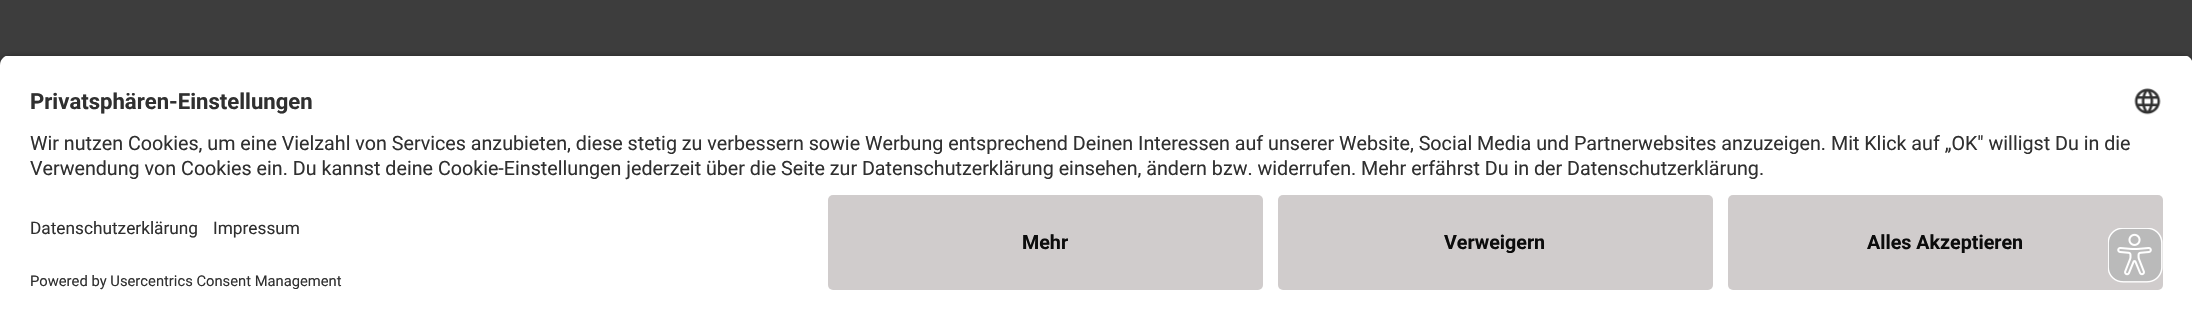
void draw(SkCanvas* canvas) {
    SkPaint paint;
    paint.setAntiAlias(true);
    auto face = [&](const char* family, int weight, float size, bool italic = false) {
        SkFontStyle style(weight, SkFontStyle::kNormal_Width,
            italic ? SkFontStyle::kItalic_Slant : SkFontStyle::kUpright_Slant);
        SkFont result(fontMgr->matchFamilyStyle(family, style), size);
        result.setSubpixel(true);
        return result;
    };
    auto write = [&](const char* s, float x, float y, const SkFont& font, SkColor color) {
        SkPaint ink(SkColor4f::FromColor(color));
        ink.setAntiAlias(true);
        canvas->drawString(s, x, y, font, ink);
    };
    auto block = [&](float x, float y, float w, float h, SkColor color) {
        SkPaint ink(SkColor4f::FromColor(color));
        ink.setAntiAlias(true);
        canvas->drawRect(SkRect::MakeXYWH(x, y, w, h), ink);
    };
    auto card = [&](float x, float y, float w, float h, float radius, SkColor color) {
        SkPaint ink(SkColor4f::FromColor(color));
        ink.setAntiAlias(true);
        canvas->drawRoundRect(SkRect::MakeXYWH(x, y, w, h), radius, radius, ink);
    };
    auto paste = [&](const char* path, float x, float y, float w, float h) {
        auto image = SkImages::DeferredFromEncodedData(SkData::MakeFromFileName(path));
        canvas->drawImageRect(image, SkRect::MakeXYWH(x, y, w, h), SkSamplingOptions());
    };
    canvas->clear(SkColorSetRGB(61, 61, 61));
    paint.setColor(SkColorSetARGB(204, 0, 0, 0));
    paint.setMaskFilter(SkMaskFilter::MakeBlur(kNormal_SkBlurStyle, 4.5f));
    canvas->drawRoundRect(SkRect::MakeXYWH(0, 59, 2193, 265), 10, 10, paint);
    paint.setMaskFilter(nullptr);
    canvas->save();
    canvas->clipPath(SkPathBuilder().moveTo(10, 55).lineTo(2183, 55).cubicTo(2188.5f, 55, 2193, 59.5f, 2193, 65).lineTo(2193, 185).lineTo(0, 185).lineTo(0, 65).cubicTo(0, 59.5f, 4.5f, 55, 10, 55).close().detach(), true);
    block(0, 56, 2192, 129, SK_ColorWHITE);
    canvas->restore();
    auto kFont1 = face("Roboto", 700, 22.1f);
    write("Privatsphären-Einstellungen", 30, 109, kFont1, SkColorSetRGB(48, 48, 48));
    paste("pic1.png", 2134, 88, 27, 27);
    auto kFont2 = face("Roboto", 400, 19.69f);
    write("Wir nutzen Cookies, um eine Vielzahl von Services anzubieten, diese stetig zu verbessern sowie Werbung entsprechend Deinen Interessen auf unserer Website, Social Media und Partnerwebsites anzuzeigen. Mit Klick auf „OK\" willigst Du in die", 30, 150, kFont2, SkColorSetRGB(48, 48, 48));
    write("Verwendung von Cookies ein. Du kannst deine Cookie-Einstellungen jederzeit über die Seite zur Datenschutzerklärung einsehen, ändern bzw. widerrufen. Mehr erfährst Du in der Datenschutzerklärung.", 30, 175, kFont2, SkColorSetRGB(48, 48, 48));
    block(0, 185, 2192, 135, SK_ColorWHITE);
    auto kFont3 = face("Roboto", 400, 17.25f);
    write("Datenschutzerklärung", 30, 234, kFont3, SkColorSetRGB(48, 48, 48));
    write("Impressum", 213, 234, kFont3, SkColorSetRGB(48, 48, 48));
    auto kFont4 = face("Roboto", 400, 14.75f);
    write("Powered by Usercentrics Consent Management", 30, 286, kFont4, SkColorSetRGB(48, 48, 48));
    card(828, 195, 435, 95, 5, SkColorSetRGB(208, 204, 204));
    auto kFont5 = face("Roboto", 700, 19.69f);
    write("Mehr", 1022, 249, kFont5, SkColorSetRGB(12, 12, 12));
    card(1278, 195, 435, 95, 5, SkColorSetRGB(208, 204, 204));
    write("Verweigern", 1444, 249, kFont5, SkColorSetRGB(12, 12, 12));
    card(1728, 195, 435, 95, 5, SkColorSetRGB(208, 204, 204));
    write("Alles Akzeptieren", 1867, 249, kFont5, SkColorSetRGB(12, 12, 12));
    paste("pic2.png", 2108, 228, 55, 55);
}
